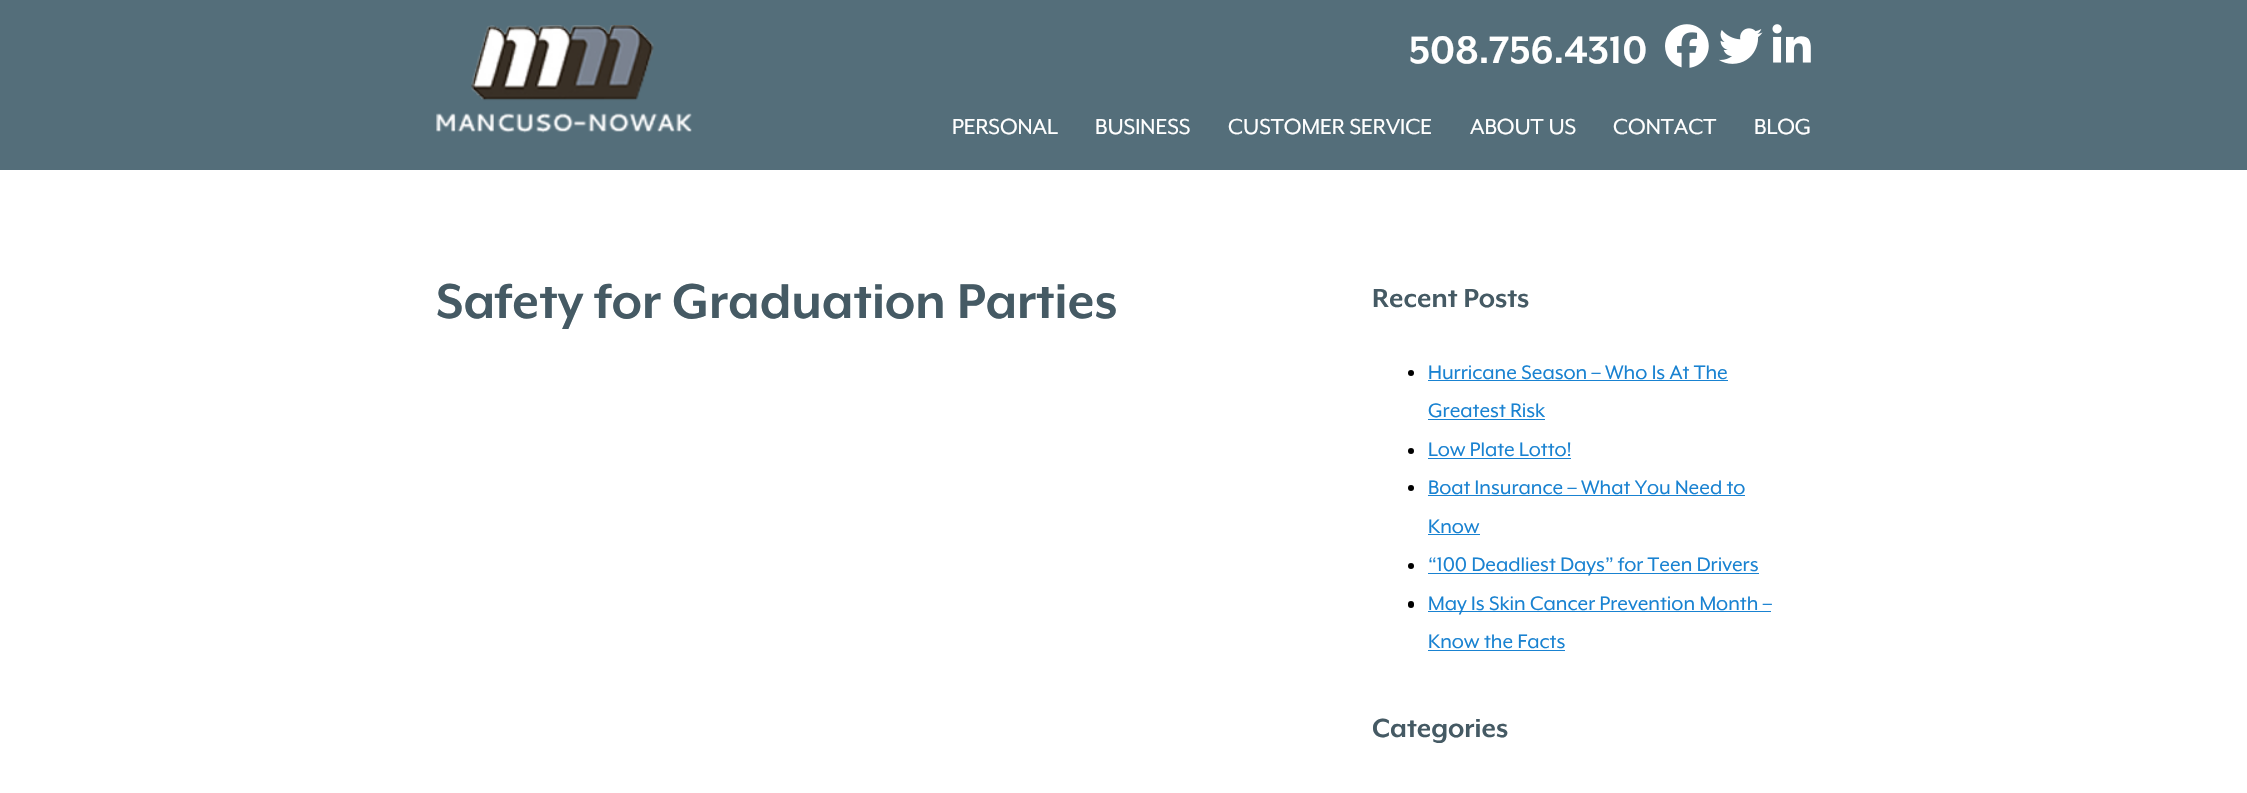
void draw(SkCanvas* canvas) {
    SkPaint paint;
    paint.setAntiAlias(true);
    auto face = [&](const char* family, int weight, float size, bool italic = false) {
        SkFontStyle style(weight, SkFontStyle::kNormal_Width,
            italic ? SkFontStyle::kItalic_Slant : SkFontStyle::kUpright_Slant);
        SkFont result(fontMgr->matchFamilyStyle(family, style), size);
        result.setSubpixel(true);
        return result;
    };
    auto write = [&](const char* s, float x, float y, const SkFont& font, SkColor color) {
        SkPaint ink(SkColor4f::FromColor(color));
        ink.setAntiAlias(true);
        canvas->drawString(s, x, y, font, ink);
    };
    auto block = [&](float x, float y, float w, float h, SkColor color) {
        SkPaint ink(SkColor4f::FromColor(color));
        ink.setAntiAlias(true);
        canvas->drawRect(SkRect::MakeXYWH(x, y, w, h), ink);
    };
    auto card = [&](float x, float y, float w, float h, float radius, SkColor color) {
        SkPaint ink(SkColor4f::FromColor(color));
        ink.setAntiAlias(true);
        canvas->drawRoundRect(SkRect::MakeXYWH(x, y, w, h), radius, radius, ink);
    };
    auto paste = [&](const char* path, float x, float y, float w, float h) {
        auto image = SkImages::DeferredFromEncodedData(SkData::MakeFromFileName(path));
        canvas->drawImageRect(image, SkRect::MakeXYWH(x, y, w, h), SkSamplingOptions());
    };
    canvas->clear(SK_ColorWHITE);
    block(0, 0, 2247, 170, SkColorSetRGB(84, 110, 122));
    paste("pic1.png", 436, 25, 256, 108);
    auto kFont1 = face("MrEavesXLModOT", 700, 43.75f);
    write("508.756.4310", 1409, 63, kFont1, SK_ColorWHITE);
    paste("pic2.png", 1665, 24, 44, 44);
    paste("pic3.png", 1719, 28, 44, 36);
    paste("pic4.png", 1772, 24, 39, 39);
    auto kFont2 = face("MrEavesXLModOT", 400, 25);
    write("PERSONAL", 952, 134, kFont2, SK_ColorWHITE);
    write("BUSINESS", 1095, 134, kFont2, SK_ColorWHITE);
    write("CUSTOMER SERVICE", 1228, 134, kFont2, SK_ColorWHITE);
    write("ABOUT US", 1470, 134, kFont2, SK_ColorWHITE);
    write("CONTACT", 1613, 134, kFont2, SK_ColorWHITE);
    write("BLOG", 1754, 134, kFont2, SK_ColorWHITE);
    auto kFont3 = face("MrEavesXLModOT", 700, 56.25f);
    write("Safety for Graduation Parties", 436, 318, kFont3, SkColorSetRGB(69, 90, 100));
    auto kFont4 = face("MrEavesXLModOT", 700, 30);
    write("Recent Posts", 1372, 307, kFont4, SkColorSetRGB(69, 90, 100));
    paint.setColor(SK_ColorBLACK);
    canvas->drawCircle(1411, 373, 3, paint);
    auto kFont5 = face("MrEavesXLModOT", 400, 22.5f);
    write("Hurricane Season – Who Is At The", 1428, 379, kFont5, SkColorSetRGB(25, 130, 209));
    block(1428, 380, 300, 1, SkColorSetRGB(25, 130, 209));
    write("Greatest Risk", 1428, 417, kFont5, SkColorSetRGB(25, 130, 209));
    block(1428, 419, 117, 1, SkColorSetRGB(25, 130, 209));
    canvas->drawCircle(1411, 451, 3, paint);
    write("Low Plate Lotto!", 1428, 456, kFont5, SkColorSetRGB(25, 130, 209));
    block(1428, 458, 143, 1, SkColorSetRGB(25, 130, 209));
    canvas->drawCircle(1411, 488, 3, paint);
    write("Boat Insurance – What You Need to", 1428, 494, kFont5, SkColorSetRGB(25, 130, 209));
    block(1428, 495, 317, 1, SkColorSetRGB(25, 130, 209));
    write("Know", 1428, 533, kFont5, SkColorSetRGB(25, 130, 209));
    block(1428, 534, 52, 1, SkColorSetRGB(25, 130, 209));
    canvas->drawCircle(1411, 566, 3, paint);
    block(1428, 573, 331, 1, SkColorSetRGB(25, 130, 209));
    write("“100 Deadliest Days” for Teen Drivers", 1428, 571, kFont5, SkColorSetRGB(25, 130, 209));
    card(1408, 601, 6, 7, 3, SK_ColorBLACK);
    block(1428, 611, 343, 1, SkColorSetRGB(25, 130, 209));
    write("May Is Skin Cancer Prevention Month –", 1428, 610, kFont5, SkColorSetRGB(25, 130, 209));
    write("Know the Facts", 1428, 648, kFont5, SkColorSetRGB(25, 130, 209));
    block(1428, 650, 137, 1, SkColorSetRGB(25, 130, 209));
    write("Categories", 1372, 737, kFont4, SkColorSetRGB(69, 90, 100));
}
